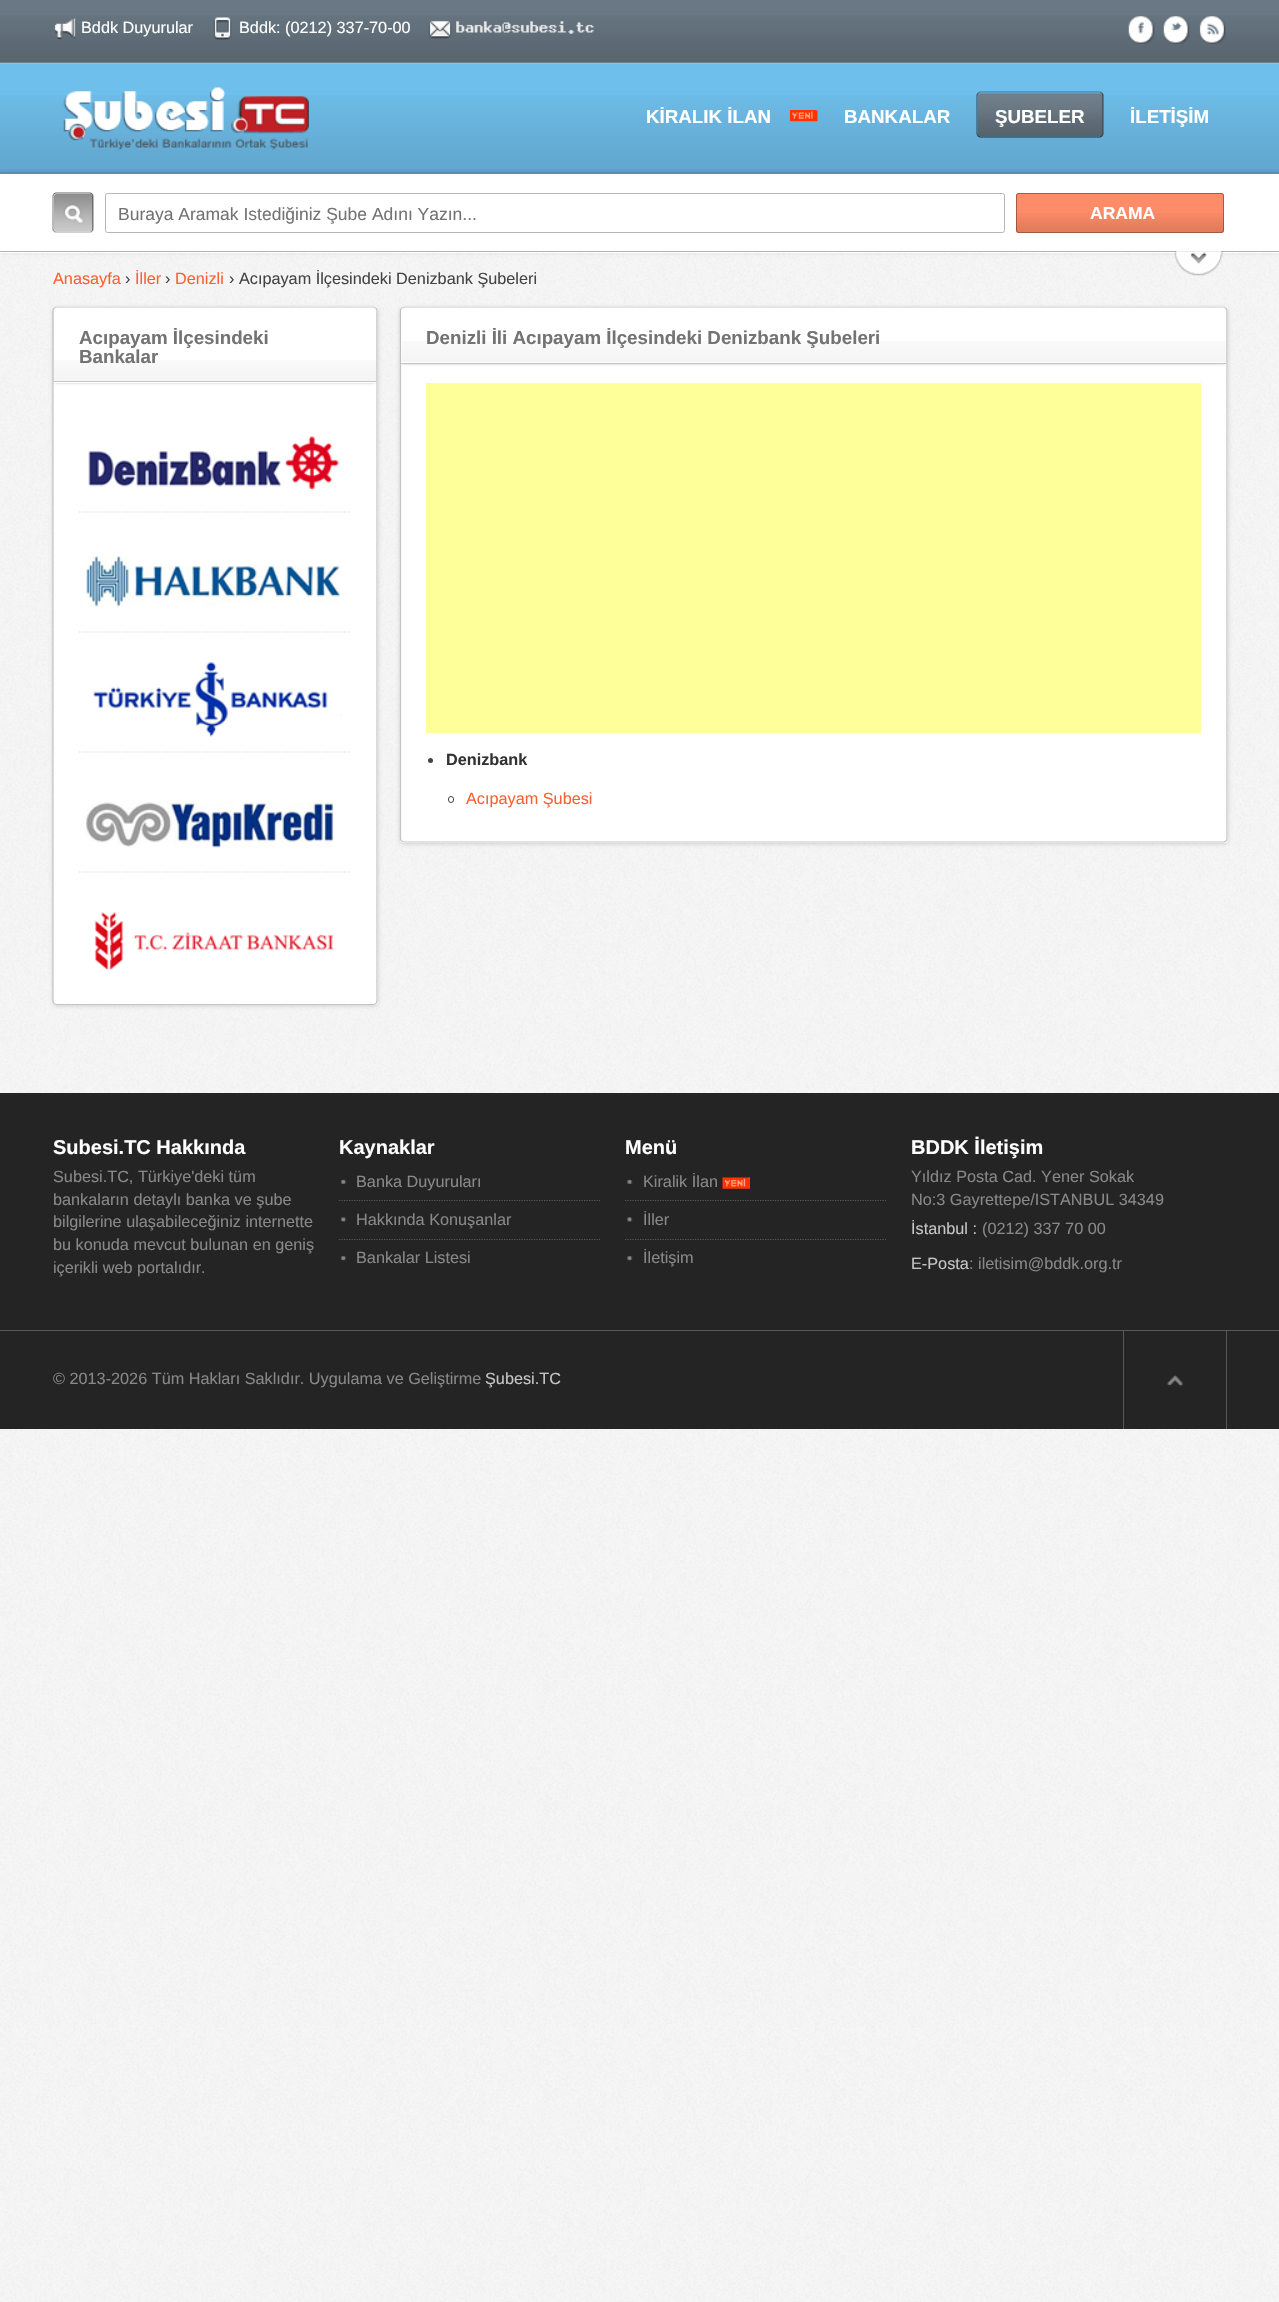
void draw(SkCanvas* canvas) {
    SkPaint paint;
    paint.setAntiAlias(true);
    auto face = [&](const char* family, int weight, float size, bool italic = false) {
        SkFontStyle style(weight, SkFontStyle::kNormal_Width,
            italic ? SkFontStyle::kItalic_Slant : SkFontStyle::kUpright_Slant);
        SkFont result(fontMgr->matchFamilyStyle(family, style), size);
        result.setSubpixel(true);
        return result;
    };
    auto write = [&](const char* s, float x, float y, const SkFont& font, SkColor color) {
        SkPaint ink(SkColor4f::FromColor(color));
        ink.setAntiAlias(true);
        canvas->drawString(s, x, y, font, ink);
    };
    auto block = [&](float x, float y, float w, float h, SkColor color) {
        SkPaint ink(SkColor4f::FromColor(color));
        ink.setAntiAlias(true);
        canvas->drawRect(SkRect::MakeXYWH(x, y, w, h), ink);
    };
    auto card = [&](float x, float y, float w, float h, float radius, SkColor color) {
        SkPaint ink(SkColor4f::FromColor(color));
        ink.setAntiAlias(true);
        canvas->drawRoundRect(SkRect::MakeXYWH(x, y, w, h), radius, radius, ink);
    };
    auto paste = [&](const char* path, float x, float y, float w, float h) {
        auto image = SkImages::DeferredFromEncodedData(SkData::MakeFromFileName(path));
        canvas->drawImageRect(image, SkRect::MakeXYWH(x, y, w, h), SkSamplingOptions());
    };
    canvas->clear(SK_ColorWHITE);
    paste("pic1.png", 0, 253, 1279, 2049);
    block(0, 0, 1279, 63, SkColorSetRGB(105, 120, 132));
    paste("pic2.png", 0, 15, 1279, 48);
    paste("pic3.png", 54, 17, 22, 22);
    auto kFont1 = face("Liberation Sans", 400, 16.25f);
    write("Bddk Duyurular", 81, 33, kFont1, SK_ColorWHITE);
    paste("pic4.png", 213, 17, 19, 23);
    write("Bddk: (0212) 337-70-00", 239, 33, kFont1, SK_ColorWHITE);
    paste("pic5.png", 428, 21, 24, 18);
    paste("pic6.png", 456, 21, 138, 13);
    paste("pic7.png", 1128, 16, 27, 28);
    paste("pic8.png", 1163, 16, 27, 28);
    paste("pic9.png", 1199, 16, 27, 28);
    block(0, 63, 1279, 111, SkColorSetRGB(111, 191, 236));
    paste("pic10.png", 0, 95, 1279, 79);
    paste("pic11.png", 0, 62, 1279, 2);
    paste("pic12.png", 63, 87, 246, 63);
    auto kFont2 = face("Liberation Sans", 700, 18.75f);
    write("KİRALIK İLAN", 646, 123, kFont2, SK_ColorWHITE);
    paste("pic13.png", 790, 110, 28, 12);
    write("BANKALAR", 844, 123, kFont2, SK_ColorWHITE);
    card(978, 93, 125, 43, 2.5f, SkColorSetRGB(105, 120, 132));
    paste("pic14.png", 977, 92, 126, 45);
    paint.setStyle(SkPaint::kStroke_Style);
    paint.setStrokeWidth(1.2f);
    paint.setColor(SkColorSetARGB(102, 0, 0, 0));
    canvas->drawPath(SkPathBuilder().moveTo(978, 93).lineTo(980, 92).lineTo(1100, 92).lineTo(1102, 93).detach(), paint);
    paint.setColor(SkColorSetARGB(128, 0, 0, 0));
    canvas->drawPath(SkPathBuilder().moveTo(1102, 93).lineTo(1103, 95).lineTo(1103, 134).lineTo(1102, 136).detach(), paint);
    paint.setColor(SkColorSetARGB(179, 0, 0, 0));
    canvas->drawPath(SkPathBuilder().moveTo(1102, 136).lineTo(1100, 137).lineTo(980, 137).lineTo(978, 136).detach(), paint);
    paint.setColor(SkColorSetARGB(128, 0, 0, 0));
    canvas->drawPath(SkPathBuilder().moveTo(978, 136).lineTo(977, 134).lineTo(977, 95).lineTo(978, 93).detach(), paint);
    write("ŞUBELER", 995, 123, kFont2, SK_ColorWHITE);
    write("İLETİŞİM", 1130, 123, kFont2, SK_ColorWHITE);
    paste("pic15.png", 0, 169, 1279, 5);
    paint.setStyle(SkPaint::kFill_Style);
    paint.setColor(SkColorSetARGB(20, 0, 0, 0));
    paint.setMaskFilter(SkMaskFilter::MakeBlur(kNormal_SkBlurStyle, 2));
    canvas->drawRect(SkRect::MakeXYWH(0, 174, 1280, 79), paint);
    paint.setMaskFilter(nullptr);
    block(0, 174, 1279, 79, SK_ColorWHITE);
    block(0, 251, 1279, 1, SkColorSetRGB(178, 178, 178));
    card(54, 194, 39, 37, 2.5f, SkColorSetRGB(136, 136, 136));
    paste("pic16.png", 54, 194, 39, 37);
    paint.setStyle(SkPaint::kStroke_Style);
    paint.setColor(SkColorSetRGB(102, 102, 102));
    canvas->drawPath(SkPathBuilder().moveTo(54, 194).cubicTo(54.5f, 193.5f, 55.5f, 193, 56, 193).lineTo(90, 193).cubicTo(91, 193, 91.5f, 193.5f, 92, 194).detach(), paint);
    paint.setColor(SkColorSetARGB(115, 0, 0, 0));
    canvas->drawPath(SkPathBuilder().moveTo(92, 194).cubicTo(93, 194.5f, 93, 195.5f, 93, 196).lineTo(93, 229).cubicTo(93, 229.5f, 93, 230.5f, 92, 231).detach(), paint);
    paint.setColor(SkColorSetRGB(166, 166, 166));
    canvas->drawPath(SkPathBuilder().moveTo(92, 231).cubicTo(91.5f, 231.5f, 91, 232, 90, 232).lineTo(56, 232).cubicTo(55.5f, 232, 54.5f, 231.5f, 54, 231).detach(), paint);
    paint.setColor(SkColorSetRGB(140, 140, 140));
    canvas->drawPath(SkPathBuilder().moveTo(54, 231).cubicTo(53.5f, 230.5f, 53, 229.5f, 53, 229).lineTo(53, 196).cubicTo(53, 195.5f, 53.5f, 194.5f, 54, 194).detach(), paint);
    paint.setStrokeWidth(1);
    paint.setColor(SkColorSetRGB(181, 181, 181));
    canvas->drawRoundRect(SkRect::MakeXYWH(105.5f, 193.5f, 899, 39), 2, 2, paint);
    auto kFont3 = face("Liberation Sans", 400, 17.5f);
    write("Buraya Aramak Istediğiniz Şube Adını Yazın...", 118, 220, kFont3, SkColorSetRGB(115, 115, 115));
    card(1016, 193, 208, 40, 2.5f, SkColorSetRGB(255, 140, 104));
    paste("pic17.png", 1016, 213, 208, 20);
    paint.setColor(SkColorSetARGB(89, 0, 0, 0));
    canvas->drawRoundRect(SkRect::MakeXYWH(1016.5f, 193.5f, 207, 39), 2, 2, paint);
    auto kFont4 = face("Liberation Sans", 700, 17.5f);
    write("ARAMA", 1090, 219, kFont4, SK_ColorWHITE);
    paste("pic18.png", 1174, 251, 49, 25);
    write("Anasayfa", 53, 284, kFont1, SkColorSetRGB(248, 97, 50));
    write("›", 125, 284, kFont1, SkColorSetRGB(68, 68, 68));
    write("İller", 135, 284, kFont1, SkColorSetRGB(248, 97, 50));
    write("›", 165, 284, kFont1, SkColorSetRGB(68, 68, 68));
    write("Denizli", 175, 284, kFont1, SkColorSetRGB(248, 97, 50));
    write("› Acıpayam İlçesindeki Denizbank Şubeleri", 229, 284, kFont1, SkColorSetRGB(68, 68, 68));
    paint.setStyle(SkPaint::kFill_Style);
    paint.setColor(SkColorSetARGB(38, 0, 0, 0));
    paint.setMaskFilter(SkMaskFilter::MakeBlur(kNormal_SkBlurStyle, 2));
    canvas->drawRoundRect(SkRect::MakeXYWH(53, 308, 325, 698), 4, 4, paint);
    paint.setMaskFilter(nullptr);
    card(53, 306, 325, 699, 4, SK_ColorWHITE);
    paint.setStyle(SkPaint::kStroke_Style);
    paint.setStrokeWidth(1.2f);
    paint.setColor(SkColorSetRGB(204, 204, 204));
    canvas->drawPath(SkPathBuilder().moveTo(54, 308).lineTo(56, 307).lineTo(374, 307).lineTo(376, 308).detach(), paint);
    paint.setColor(SkColorSetRGB(196, 196, 196));
    canvas->drawPath(SkPathBuilder().moveTo(376, 308).lineTo(377, 310).lineTo(377, 1001).lineTo(376, 1003.5f).detach(), paint);
    paint.setColor(SkColorSetRGB(197, 197, 197));
    canvas->drawPath(SkPathBuilder().moveTo(376, 1003.5f).lineTo(374, 1004.5f).lineTo(56, 1004.5f).lineTo(54, 1003.5f).detach(), paint);
    paint.setColor(SkColorSetRGB(196, 196, 196));
    canvas->drawPath(SkPathBuilder().moveTo(54, 1003.5f).lineTo(53, 1001).lineTo(53, 310).lineTo(54, 308).detach(), paint);
    paint.setStyle(SkPaint::kFill_Style);
    paint.setColor(SkColorSetARGB(28, 0, 0, 0));
    paint.setMaskFilter(SkMaskFilter::MakeBlur(kNormal_SkBlurStyle, 1));
    canvas->drawRoundRect(SkRect::MakeXYWH(54, 309, 322, 75), 4, 4, paint);
    paint.setMaskFilter(nullptr);
    paint.setColor(SK_ColorWHITE);
    canvas->drawPath(SkPathBuilder().moveTo(58, 308).lineTo(372, 308).cubicTo(374, 308, 376, 310, 376, 312).lineTo(376, 383).lineTo(54, 383).lineTo(54, 312).cubicTo(54, 310, 56, 308, 58, 308).close().detach(), paint);
    paste("pic19.png", 54, 360, 322, 21);
    block(54, 381, 322, 1, SkColorSetRGB(197, 197, 197));
    write("Acıpayam İlçesindeki", 79, 344, kFont2, SkColorSetRGB(115, 115, 115));
    write("Bankalar", 79, 363, kFont2, SkColorSetRGB(115, 115, 115));
    paint.setStyle(SkPaint::kStroke_Style);
    paint.setColor(SkColorSetRGB(215, 215, 215));
    paint.setPathEffect(SkDashPathEffect::Make({{1.25f, 1.25f}}, 0));
    canvas->drawPath(SkPathBuilder().moveTo(79, 512).lineTo(351, 512).detach(), paint);
    paint.setPathEffect(nullptr);
    paste("pic20.png", 88, 436, 253, 55);
    paint.setPathEffect(SkDashPathEffect::Make({{1.25f, 1.25f}}, 0));
    canvas->drawPath(SkPathBuilder().moveTo(79, 632).lineTo(351, 632).detach(), paint);
    paint.setPathEffect(nullptr);
    paste("pic21.png", 83, 556, 258, 51);
    paint.setPathEffect(SkDashPathEffect::Make({{1.25f, 1.25f}}, 0));
    canvas->drawPath(SkPathBuilder().moveTo(79, 752).lineTo(351, 752).detach(), paint);
    paint.setPathEffect(nullptr);
    paste("pic22.png", 93, 661, 249, 76);
    paint.setPathEffect(SkDashPathEffect::Make({{1.25f, 1.25f}}, 0));
    canvas->drawPath(SkPathBuilder().moveTo(79, 872).lineTo(351, 872).detach(), paint);
    paint.setPathEffect(nullptr);
    paste("pic23.png", 84, 801, 250, 47);
    paste("pic24.png", 94, 912, 240, 59);
    paint.setStyle(SkPaint::kFill_Style);
    paint.setColor(SkColorSetARGB(38, 0, 0, 0));
    paint.setMaskFilter(SkMaskFilter::MakeBlur(kNormal_SkBlurStyle, 2));
    canvas->drawRoundRect(SkRect::MakeXYWH(400, 308, 828, 536), 4, 4, paint);
    paint.setMaskFilter(nullptr);
    card(400, 306, 828, 537, 4, SK_ColorWHITE);
    paint.setStyle(SkPaint::kStroke_Style);
    paint.setColor(SkColorSetRGB(204, 204, 204));
    canvas->drawPath(SkPathBuilder().moveTo(401.5f, 308).lineTo(404, 307).lineTo(1224, 307).lineTo(1226, 308).detach(), paint);
    paint.setColor(SkColorSetRGB(196, 196, 196));
    canvas->drawPath(SkPathBuilder().moveTo(1226, 308).lineTo(1227, 310).lineTo(1227, 839).lineTo(1226, 841).detach(), paint);
    paint.setColor(SkColorSetRGB(197, 197, 197));
    canvas->drawPath(SkPathBuilder().moveTo(1226, 841).lineTo(1224, 842).lineTo(404, 842).lineTo(401.5f, 841).detach(), paint);
    paint.setColor(SkColorSetRGB(196, 196, 196));
    canvas->drawPath(SkPathBuilder().moveTo(401.5f, 841).lineTo(400.5f, 839).lineTo(400.5f, 310).lineTo(401.5f, 308).detach(), paint);
    paint.setStyle(SkPaint::kFill_Style);
    paint.setColor(SkColorSetARGB(28, 0, 0, 0));
    paint.setMaskFilter(SkMaskFilter::MakeBlur(kNormal_SkBlurStyle, 1));
    canvas->drawRoundRect(SkRect::MakeXYWH(401, 309, 825, 56), 4, 4, paint);
    paint.setMaskFilter(nullptr);
    paint.setColor(SK_ColorWHITE);
    canvas->drawPath(SkPathBuilder().moveTo(405, 308).lineTo(1222, 308).cubicTo(1224, 308, 1226, 310, 1226, 312).lineTo(1226, 364).lineTo(401, 364).lineTo(401, 312).cubicTo(401, 310, 403, 308, 405, 308).close().detach(), paint);
    paste("pic25.png", 401, 341, 825, 21);
    block(401, 363, 825, 1, SkColorSetRGB(197, 197, 197));
    write("Denizli İli Acıpayam İlçesindeki Denizbank Şubeleri", 426, 344, kFont2, SkColorSetRGB(115, 115, 115));
    block(426, 383, 775, 350, SkColorSetRGB(255, 255, 153));
    paint.setColor(SkColorSetRGB(68, 68, 68));
    canvas->drawCircle(430.5f, 760.5f, 2.5f, paint);
    auto kFont5 = face("Liberation Sans", 700, 16.25f);
    write("Denizbank", 446, 765, kFont5, SkColorSetRGB(51, 51, 51));
    paint.setStyle(SkPaint::kStroke_Style);
    paint.setStrokeWidth(1);
    canvas->drawRoundRect(SkRect::MakeXYWH(448.5f, 796.5f, 5, 6), 2.5f, 2.5f, paint);
    write("Acıpayam Şubesi", 466, 804, kFont1, SkColorSetRGB(248, 97, 50));
    block(0, 1093, 1279, 336, SkColorSetRGB(37, 36, 37));
    auto kFont6 = face("Liberation Sans", 700, 20);
    write("Subesi.TC Hakkında", 53, 1154, kFont6, SK_ColorWHITE);
    write("Subesi.TC, Türkiye'deki tüm", 53, 1182, kFont1, SkColorSetRGB(136, 136, 136));
    write("bankaların detaylı banka ve şube", 53, 1205, kFont1, SkColorSetRGB(136, 136, 136));
    write("bilgilerine ulaşabileceğiniz internette", 53, 1227, kFont1, SkColorSetRGB(136, 136, 136));
    write("bu konuda mevcut bulunan en geniş", 53, 1250, kFont1, SkColorSetRGB(136, 136, 136));
    write("içerikli web portalıdır.", 53, 1273, kFont1, SkColorSetRGB(136, 136, 136));
    write("Kaynaklar", 339, 1154, kFont6, SK_ColorWHITE);
    paste("pic26.png", 341, 1179, 6, 5);
    paint.setStrokeWidth(1.2f);
    paint.setColor(SkColorSetRGB(88, 88, 88));
    paint.setPathEffect(SkDashPathEffect::Make({{1.25f, 1.25f}}, 0));
    canvas->drawPath(SkPathBuilder().moveTo(339, 1200.5f).lineTo(600, 1200.5f).detach(), paint);
    paint.setPathEffect(nullptr);
    write("Banka Duyuruları", 356, 1187, kFont1, SkColorSetRGB(136, 136, 136));
    paste("pic27.png", 341, 1217, 6, 5);
    paint.setPathEffect(SkDashPathEffect::Make({{1.25f, 1.25f}}, 0));
    canvas->drawPath(SkPathBuilder().moveTo(339, 1239.5f).lineTo(600, 1239.5f).detach(), paint);
    paint.setPathEffect(nullptr);
    write("Hakkında Konuşanlar", 356, 1225, kFont1, SkColorSetRGB(136, 136, 136));
    paste("pic28.png", 341, 1256, 6, 5);
    write("Bankalar Listesi", 356, 1263, kFont1, SkColorSetRGB(136, 136, 136));
    write("Menü", 625, 1154, kFont6, SK_ColorWHITE);
    paste("pic29.png", 627, 1179, 6, 5);
    paint.setPathEffect(SkDashPathEffect::Make({{1.25f, 1.25f}}, 0));
    canvas->drawPath(SkPathBuilder().moveTo(625, 1200.5f).lineTo(886, 1200.5f).detach(), paint);
    paint.setPathEffect(nullptr);
    write("Kiralik İlan", 643, 1187, kFont1, SkColorSetRGB(136, 136, 136));
    paste("pic30.png", 722, 1177, 28, 12);
    paste("pic31.png", 627, 1217, 6, 5);
    paint.setPathEffect(SkDashPathEffect::Make({{1.25f, 1.25f}}, 0));
    canvas->drawPath(SkPathBuilder().moveTo(625, 1239.5f).lineTo(886, 1239.5f).detach(), paint);
    paint.setPathEffect(nullptr);
    write("İller", 643, 1225, kFont1, SkColorSetRGB(136, 136, 136));
    paste("pic32.png", 627, 1256, 6, 5);
    write("İletişim", 643, 1263, kFont1, SkColorSetRGB(136, 136, 136));
    write("BDDK İletişim", 911, 1154, kFont6, SK_ColorWHITE);
    write("Yıldız Posta Cad. Yener Sokak", 911, 1182, kFont1, SkColorSetRGB(136, 136, 136));
    write("No:3 Gayrettepe/ISTANBUL 34349", 911, 1205, kFont1, SkColorSetRGB(136, 136, 136));
    write("İstanbul :", 911, 1234, kFont1, SkColorSetRGB(197, 197, 197));
    write("(0212) 337 70 00", 982, 1234, kFont1, SkColorSetRGB(136, 136, 136));
    write("E-Posta", 911, 1269, kFont1, SkColorSetRGB(197, 197, 197));
    write(": iletisim@bddk.org.tr", 969, 1269, kFont1, SkColorSetRGB(136, 136, 136));
    block(0, 1330, 1279, 1, SkColorSetRGB(88, 88, 88));
    write("© 2013-2026 Tüm Hakları Saklıdır. Uygulama ve Geliştirme", 53, 1384, kFont1, SkColorSetRGB(136, 136, 136));
    write("Şubesi.TC", 485, 1384, kFont1, SkColorSetRGB(197, 197, 197));
    paste("pic33.png", 1167, 1375, 16, 12);
    block(1226, 1331, 1, 98, SkColorSetRGB(88, 88, 88));
    block(1123, 1331, 1, 98, SkColorSetRGB(88, 88, 88));
}
